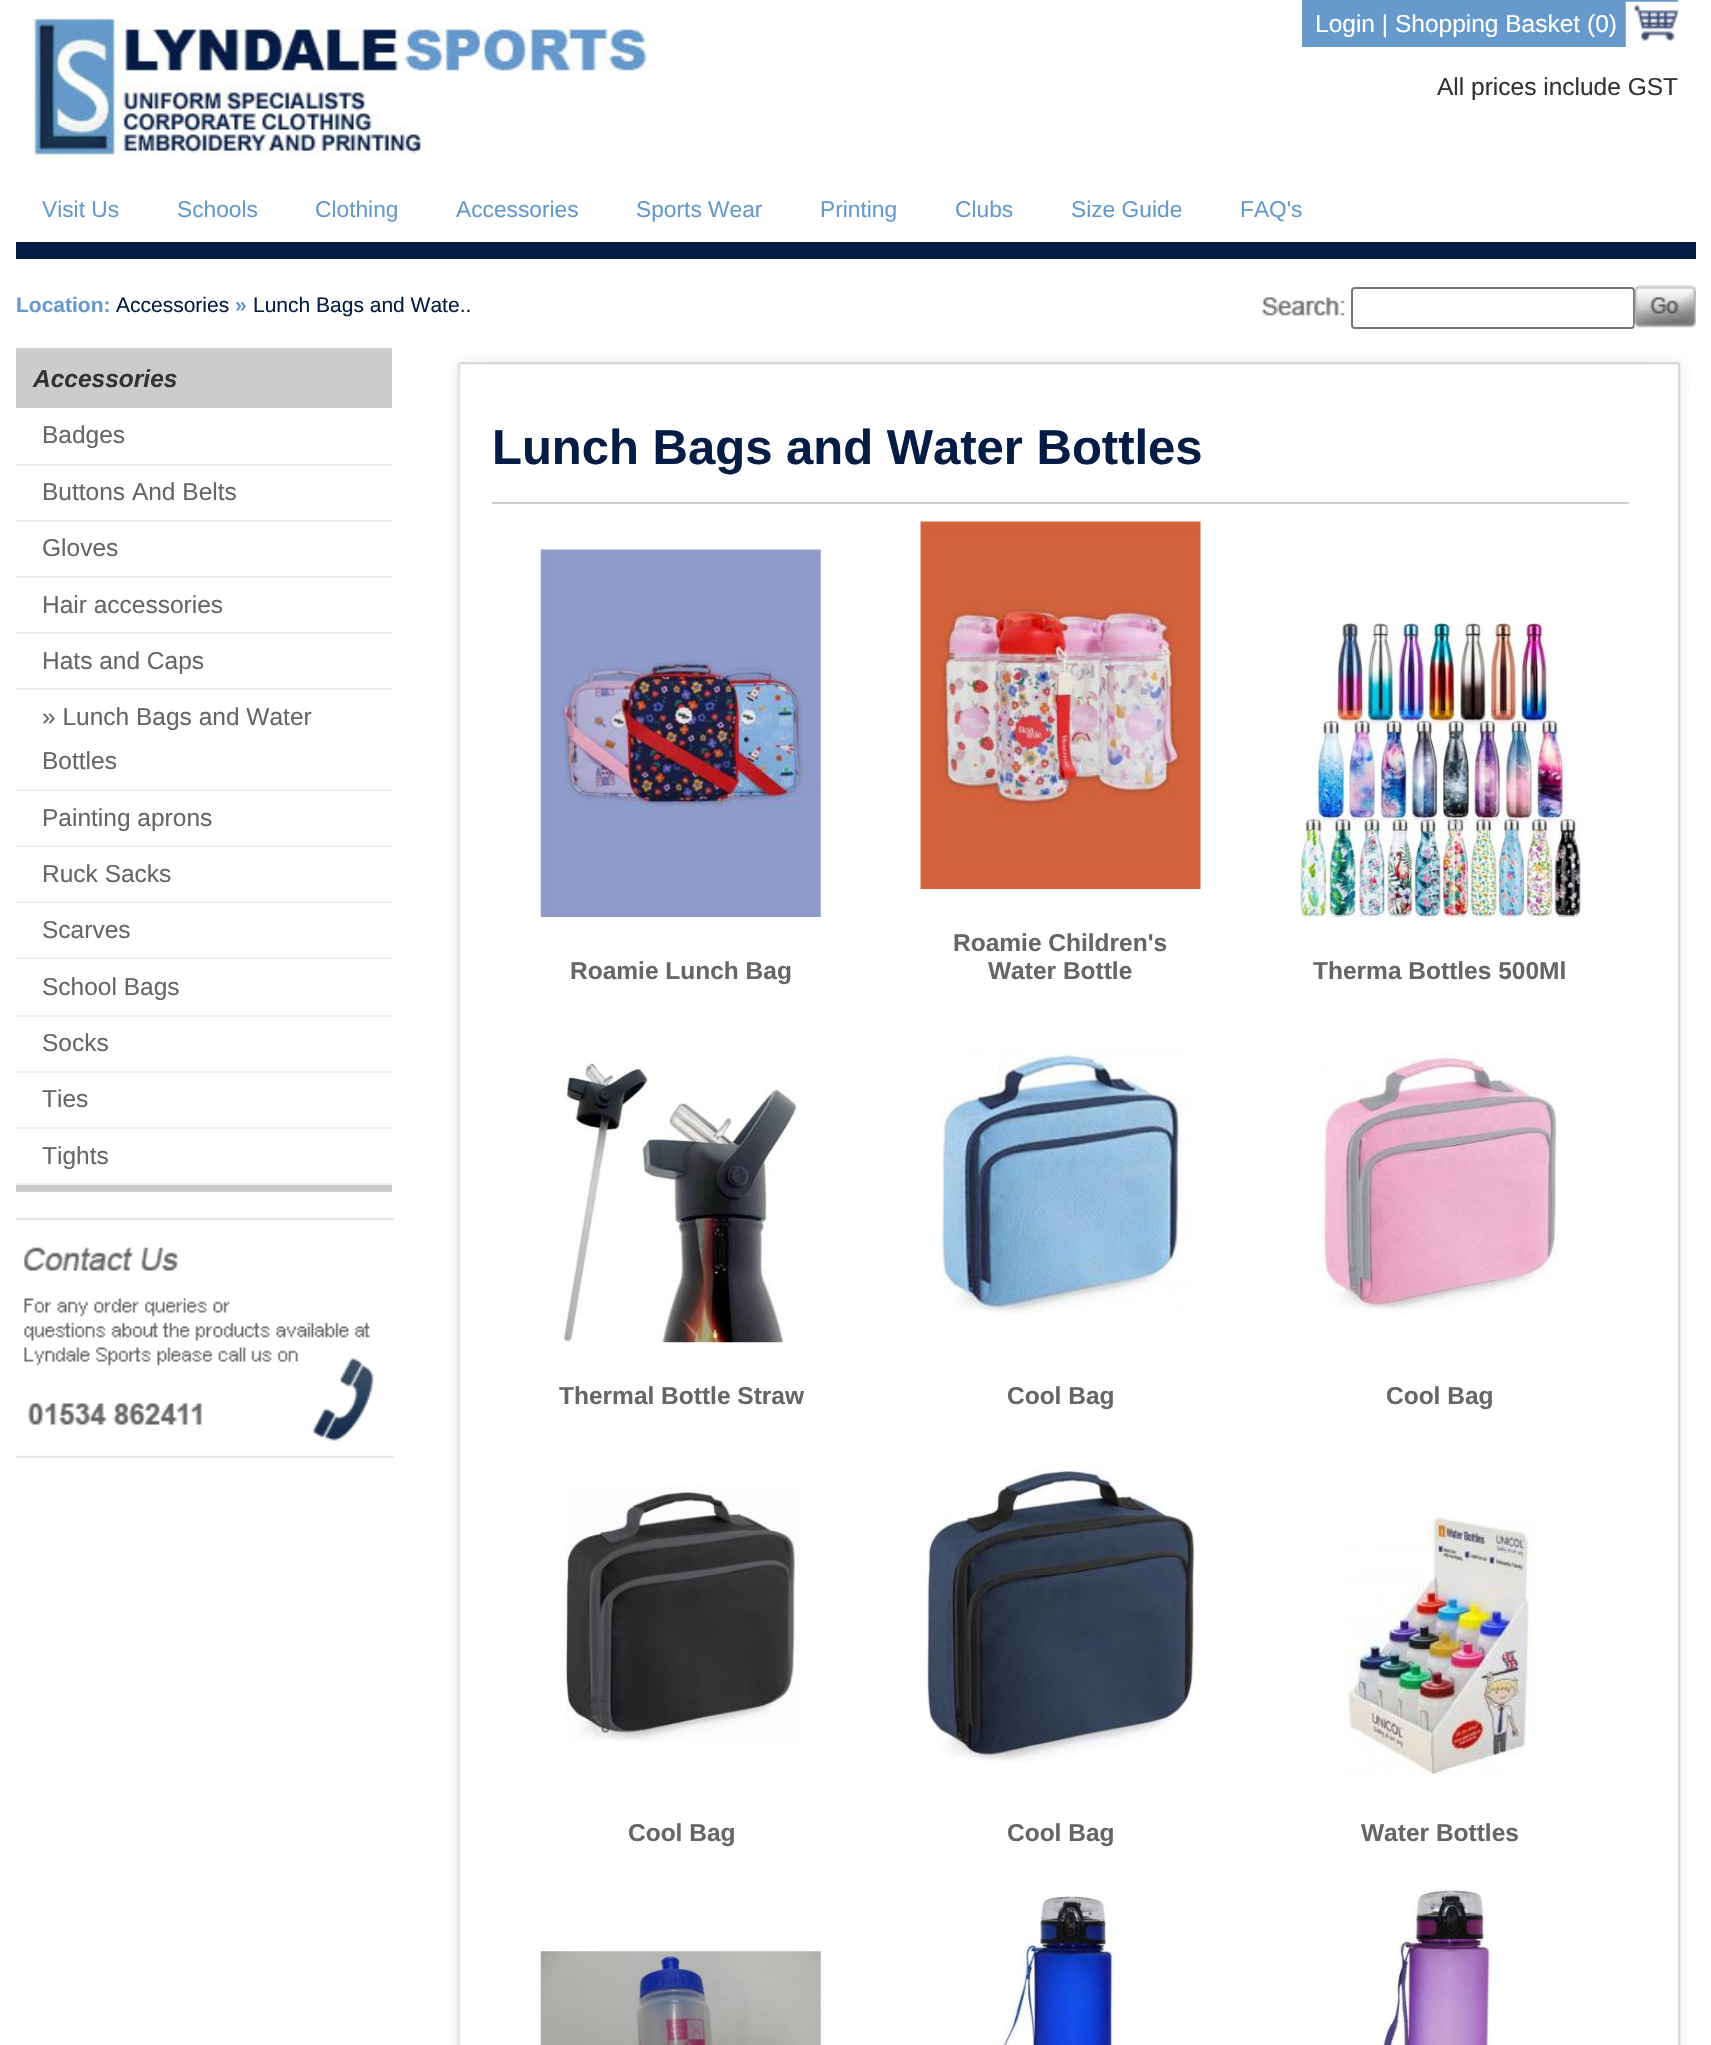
void draw(SkCanvas* canvas) {
    SkPaint paint;
    paint.setAntiAlias(true);
    auto face = [&](const char* family, int weight, float size, bool italic = false) {
        SkFontStyle style(weight, SkFontStyle::kNormal_Width,
            italic ? SkFontStyle::kItalic_Slant : SkFontStyle::kUpright_Slant);
        SkFont result(fontMgr->matchFamilyStyle(family, style), size);
        result.setSubpixel(true);
        return result;
    };
    auto write = [&](const char* s, float x, float y, const SkFont& font, SkColor color) {
        SkPaint ink(SkColor4f::FromColor(color));
        ink.setAntiAlias(true);
        canvas->drawString(s, x, y, font, ink);
    };
    auto block = [&](float x, float y, float w, float h, SkColor color) {
        SkPaint ink(SkColor4f::FromColor(color));
        ink.setAntiAlias(true);
        canvas->drawRect(SkRect::MakeXYWH(x, y, w, h), ink);
    };
    auto paste = [&](const char* path, float x, float y, float w, float h) {
        auto image = SkImages::DeferredFromEncodedData(SkData::MakeFromFileName(path));
        canvas->drawImageRect(image, SkRect::MakeXYWH(x, y, w, h), SkSamplingOptions());
    };
    canvas->clear(SK_ColorWHITE);
    block(16, 242, 1680, 17, SkColorSetRGB(5, 28, 69));
    paste("pic1.png", 30, 14, 617, 141);
    block(1302, 0, 376, 47, SkColorSetRGB(102, 153, 204));
    paste("pic2.png", 1625, 1, 54, 46);
    auto kFont1 = face("Liberation Sans", 400, 24.5f);
    write("Login | Shopping Basket (0)", 1315, 32, kFont1, SK_ColorWHITE);
    write("All prices include GST", 1437, 95, kFont1, SkColorSetRGB(51, 51, 51));
    auto kFont2 = face("Liberation Sans", 400, 22.75f);
    write("Visit Us", 42, 217, kFont2, SkColorSetRGB(102, 153, 204));
    write("Schools", 177, 217, kFont2, SkColorSetRGB(102, 153, 204));
    write("Clothing", 315, 217, kFont2, SkColorSetRGB(102, 153, 204));
    write("Accessories", 456, 217, kFont2, SkColorSetRGB(102, 153, 204));
    write("Sports Wear", 636, 217, kFont2, SkColorSetRGB(102, 153, 204));
    write("Printing", 820, 217, kFont2, SkColorSetRGB(102, 153, 204));
    write("Clubs", 955, 217, kFont2, SkColorSetRGB(102, 153, 204));
    write("Size Guide", 1071, 217, kFont2, SkColorSetRGB(102, 153, 204));
    write("FAQ's", 1240, 217, kFont2, SkColorSetRGB(102, 153, 204));
    auto kFont3 = face("Liberation Sans", 700, 21);
    write("Location:", 16, 312, kFont3, SkColorSetRGB(102, 153, 204));
    auto kFont4 = face("Liberation Sans", 400, 21);
    write("Accessories", 116, 312, kFont4, SkColorSetRGB(5, 28, 69));
    write("»", 235, 312, kFont3, SkColorSetRGB(102, 153, 204));
    write("Lunch Bags and Wate..", 253, 312, kFont4, SkColorSetRGB(5, 28, 69));
    paste("pic3.png", 1261, 297, 84, 19);
    paint.setStyle(SkPaint::kStroke_Style);
    paint.setStrokeWidth(2);
    paint.setColor(SkColorSetRGB(118, 118, 118));
    canvas->drawRoundRect(SkRect::MakeXYWH(1352, 288, 282, 40), 3, 3, paint);
    paste("pic4.png", 1634, 285, 62, 43);
    block(16, 348, 376, 60, SkColorSetRGB(204, 204, 204));
    auto kFont5 = face("Liberation Sans", 700, 24.5f, true);
    write("Accessories", 33, 387, kFont5, SkColorSetRGB(51, 51, 51));
    block(16, 1185, 376, 7, SkColorSetRGB(204, 204, 204));
    block(16, 464, 376, 2, SkColorSetRGB(240, 240, 240));
    write("Badges", 42, 443, kFont1, SkColorSetRGB(102, 102, 102));
    block(16, 520, 376, 2, SkColorSetRGB(240, 240, 240));
    write("Buttons And Belts", 42, 500, kFont1, SkColorSetRGB(102, 102, 102));
    block(16, 576, 376, 2, SkColorSetRGB(240, 240, 240));
    write("Gloves", 42, 556, kFont1, SkColorSetRGB(102, 102, 102));
    block(16, 632, 376, 2, SkColorSetRGB(240, 240, 240));
    write("Hair accessories", 42, 613, kFont1, SkColorSetRGB(102, 102, 102));
    block(16, 688, 376, 2, SkColorSetRGB(240, 240, 240));
    write("Hats and Caps", 42, 669, kFont1, SkColorSetRGB(102, 102, 102));
    block(16, 789, 376, 2, SkColorSetRGB(240, 240, 240));
    write("» Lunch Bags and Water", 42, 725, kFont1, SkColorSetRGB(102, 102, 102));
    write("Bottles", 42, 769, kFont1, SkColorSetRGB(102, 102, 102));
    block(16, 845, 376, 2, SkColorSetRGB(240, 240, 240));
    write("Painting aprons", 42, 826, kFont1, SkColorSetRGB(102, 102, 102));
    block(16, 901, 376, 2, SkColorSetRGB(240, 240, 240));
    write("Ruck Sacks", 42, 882, kFont1, SkColorSetRGB(102, 102, 102));
    block(16, 957, 376, 2, SkColorSetRGB(240, 240, 240));
    write("Scarves", 42, 938, kFont1, SkColorSetRGB(102, 102, 102));
    block(16, 1015, 376, 2, SkColorSetRGB(240, 240, 240));
    write("School Bags", 42, 995, kFont1, SkColorSetRGB(102, 102, 102));
    block(16, 1071, 376, 2, SkColorSetRGB(240, 240, 240));
    write("Socks", 42, 1051, kFont1, SkColorSetRGB(102, 102, 102));
    block(16, 1127, 376, 2, SkColorSetRGB(240, 240, 240));
    write("Ties", 42, 1107, kFont1, SkColorSetRGB(102, 102, 102));
    block(16, 1183, 376, 2, SkColorSetRGB(240, 240, 240));
    write("Tights", 42, 1164, kFont1, SkColorSetRGB(102, 102, 102));
    paste("pic5.png", 15, 1218, 379, 240);
    paste("pic6.png", 449, 353, 1241, 41);
    paste("pic7.png", 449, 394, 1240, 1651);
    auto kFont6 = face("Liberation Sans", 700, 49);
    write("Lunch Bags and Water Bottles", 492, 464, kFont6, SkColorSetRGB(5, 28, 69));
    block(492, 502, 1137, 2, SkColorSetRGB(204, 204, 204));
    paste("pic8.png", 540, 549, 281, 368);
    auto kFont7 = face("Liberation Sans", 700, 24.5f);
    write("Roamie Lunch Bag", 570, 979, kFont7, SkColorSetRGB(102, 102, 102));
    paste("pic9.png", 920, 521, 281, 368);
    write("Roamie Children's", 953, 951, kFont7, SkColorSetRGB(102, 102, 102));
    write("Water Bottle", 988, 979, kFont7, SkColorSetRGB(102, 102, 102));
    paste("pic10.png", 1300, 623, 281, 294);
    write("Therma Bottles 500Ml", 1313, 979, kFont7, SkColorSetRGB(102, 102, 102));
    paste("pic11.png", 562, 1062, 237, 281);
    write("Thermal Bottle Straw", 559, 1404, kFont7, SkColorSetRGB(102, 102, 102));
    paste("pic12.png", 939, 1049, 252, 265);
    write("Cool Bag", 1007, 1404, kFont7, SkColorSetRGB(102, 102, 102));
    paste("pic13.png", 1319, 1051, 240, 263);
    write("Cool Bag", 1386, 1404, kFont7, SkColorSetRGB(102, 102, 102));
    paste("pic14.png", 565, 1486, 236, 256);
    write("Cool Bag", 628, 1841, kFont7, SkColorSetRGB(102, 102, 102));
    paste("pic15.png", 921, 1464, 275, 299);
    write("Cool Bag", 1007, 1841, kFont7, SkColorSetRGB(102, 102, 102));
    paste("pic16.png", 1343, 1516, 192, 262);
    write("Water Bottles", 1361, 1841, kFont7, SkColorSetRGB(102, 102, 102));
    paste("pic17.png", 540, 1951, 281, 94);
    paste("pic18.png", 991, 1895, 125, 150);
    paste("pic19.png", 1383, 1889, 111, 156);
}
